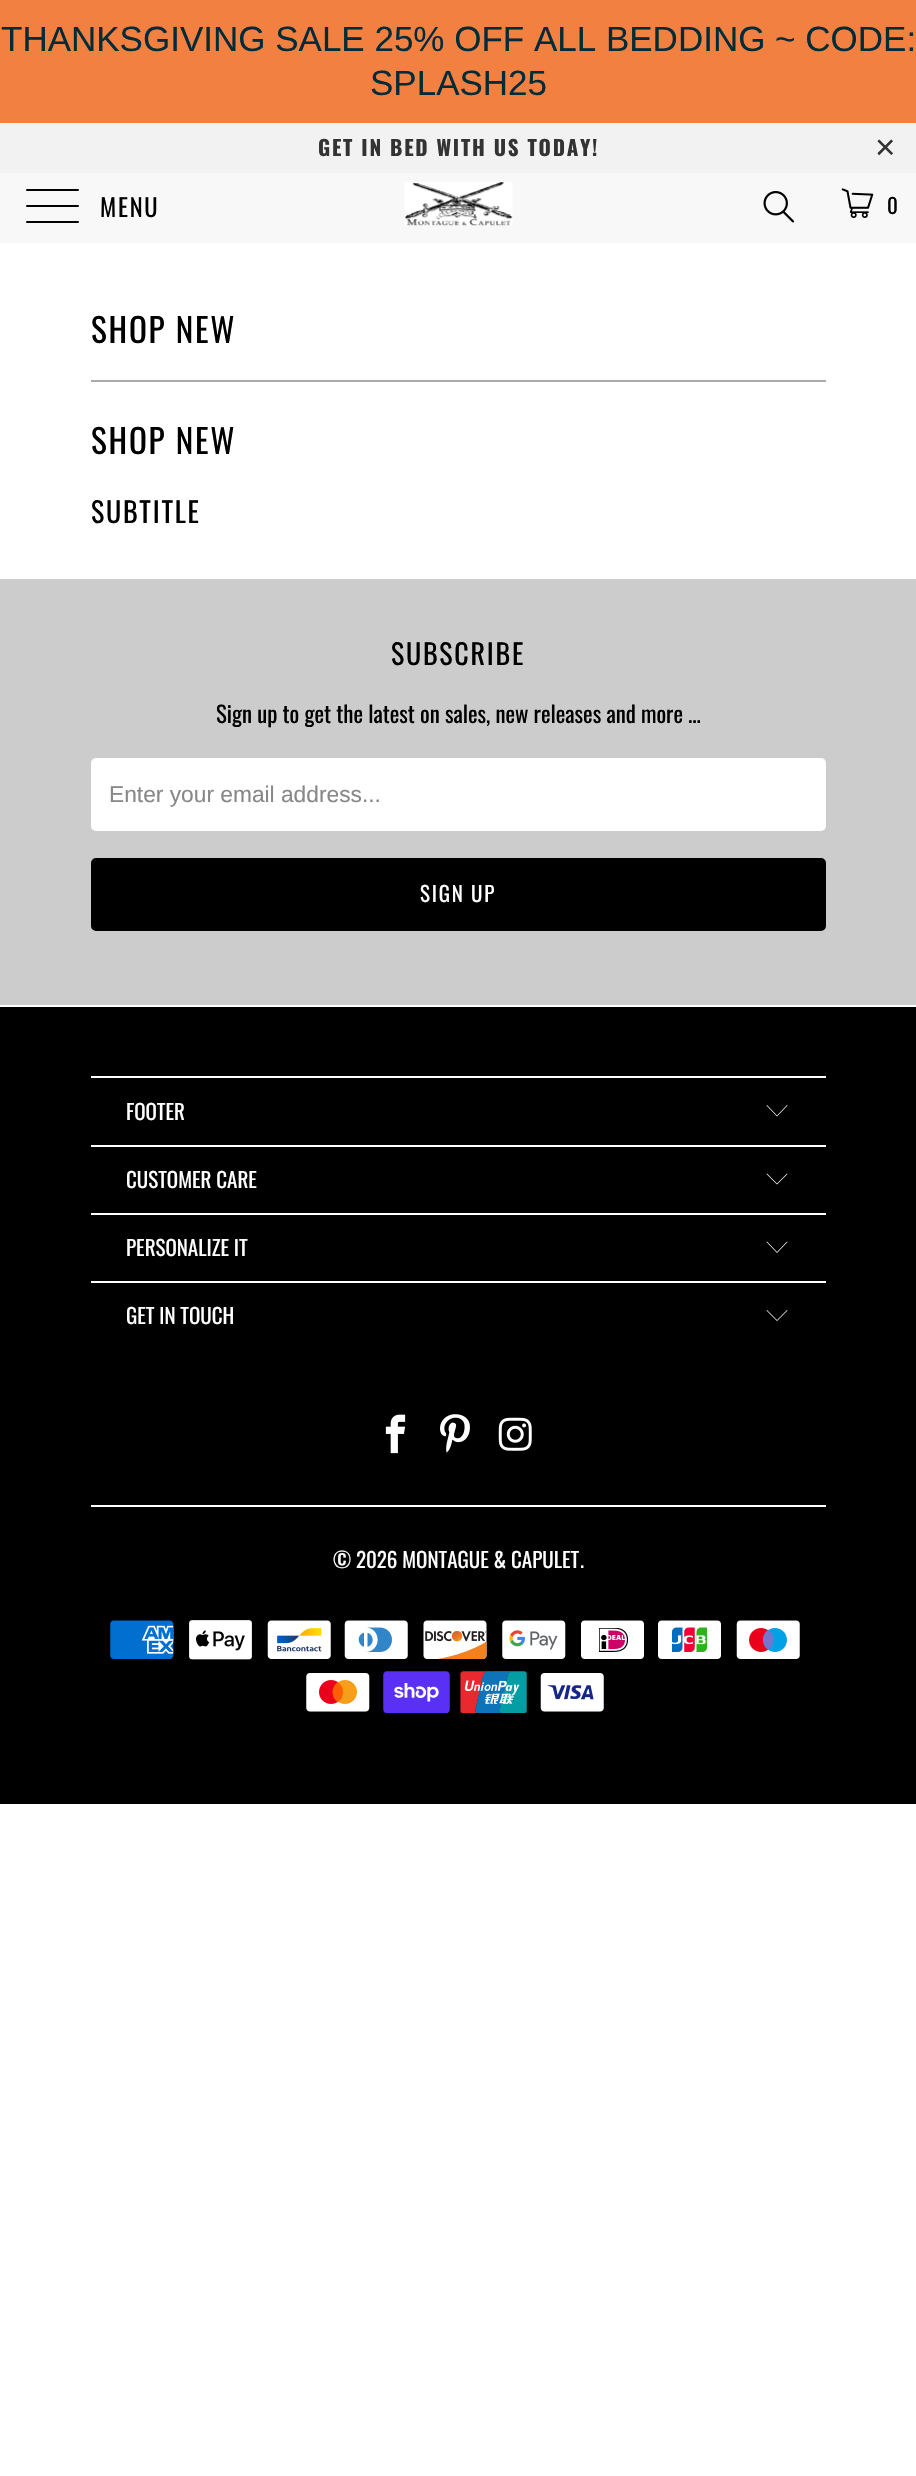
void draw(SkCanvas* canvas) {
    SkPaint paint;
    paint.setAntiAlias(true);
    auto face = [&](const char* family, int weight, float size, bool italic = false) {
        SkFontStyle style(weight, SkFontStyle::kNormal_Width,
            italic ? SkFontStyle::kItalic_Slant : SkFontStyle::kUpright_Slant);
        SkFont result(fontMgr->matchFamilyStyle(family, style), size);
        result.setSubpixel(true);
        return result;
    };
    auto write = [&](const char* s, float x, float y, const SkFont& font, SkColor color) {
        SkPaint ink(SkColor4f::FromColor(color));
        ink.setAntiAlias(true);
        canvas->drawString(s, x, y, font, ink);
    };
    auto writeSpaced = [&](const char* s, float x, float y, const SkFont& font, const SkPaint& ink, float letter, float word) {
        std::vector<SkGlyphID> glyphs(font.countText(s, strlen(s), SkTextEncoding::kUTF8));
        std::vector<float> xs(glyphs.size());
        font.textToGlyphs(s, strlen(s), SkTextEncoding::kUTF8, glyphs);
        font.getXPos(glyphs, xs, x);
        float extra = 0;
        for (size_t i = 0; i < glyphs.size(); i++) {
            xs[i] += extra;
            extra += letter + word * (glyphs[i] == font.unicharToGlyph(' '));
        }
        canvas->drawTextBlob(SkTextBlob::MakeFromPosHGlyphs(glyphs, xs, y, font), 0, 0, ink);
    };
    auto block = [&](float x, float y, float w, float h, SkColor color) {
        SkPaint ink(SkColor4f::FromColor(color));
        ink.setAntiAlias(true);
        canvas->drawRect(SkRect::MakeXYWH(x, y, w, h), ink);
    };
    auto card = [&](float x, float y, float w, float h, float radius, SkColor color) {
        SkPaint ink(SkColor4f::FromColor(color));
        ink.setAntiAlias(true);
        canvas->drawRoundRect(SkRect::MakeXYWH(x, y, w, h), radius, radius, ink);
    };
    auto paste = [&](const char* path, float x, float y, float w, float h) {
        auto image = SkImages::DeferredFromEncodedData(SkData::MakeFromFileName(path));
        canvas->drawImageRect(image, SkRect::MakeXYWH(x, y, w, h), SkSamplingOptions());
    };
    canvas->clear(SK_ColorWHITE);
    block(0, 0, 916, 123, SkColorSetRGB(242, 129, 65));
    auto kFont1 = face("Liberation Sans", 400, 35);
    write("THANKSGIVING SALE 25% OFF ALL BEDDING ~ CODE:", 1, 51, kFont1, SkColorSetRGB(0, 43, 56));
    write("SPLASH25", 370, 95, kFont1, SkColorSetRGB(0, 43, 56));
    block(0, 123, 916, 50, SkColorSetRGB(242, 242, 242));
    auto kFont2 = face("Oswald", 700, 21);
    paint.setColor(SkColorSetRGB(51, 51, 51));
    writeSpaced("GET IN BED WITH US TODAY!", 318, 156, kFont2, paint, 1.75f, 0);
    writeSpaced("×", 875, 159, kFont1, paint, 1.75f, 0);
    block(0, 173, 916, 70, SkColorSetRGB(248, 248, 248));
    card(26, 189, 53, 2, 1, SK_ColorBLACK);
    card(26, 205, 53, 2, 1, SK_ColorBLACK);
    card(26, 221, 53, 2, 1, SK_ColorBLACK);
    auto kFont3 = face("Oswald", 400, 24.5f);
    paint.setColor(SK_ColorBLACK);
    writeSpaced("MENU", 100, 217, kFont3, paint, 1.75f, 0);
    paste("pic1.png", 404, 182, 109, 44);
    paste("pic2.png", 763, 191, 31, 32);
    paste("pic3.png", 841, 188, 33, 30);
    auto kFont4 = face("Oswald", 400, 21);
    writeSpaced("0", 887, 214, kFont4, paint, 1.75f, 0);
    auto kFont5 = face("Oswald", 400, 33.25f);
    writeSpaced("SHOP NEW", 91, 343, kFont5, paint, 1.75f, 0);
    block(91, 380, 735, 2, SkColorSetRGB(170, 170, 170));
    writeSpaced("SHOP NEW", 91, 454, kFont5, paint, 1.75f, 0);
    auto kFont6 = face("Oswald", 400, 28);
    writeSpaced("SUBTITLE", 91, 523, kFont6, paint, 1.75f, 0);
    block(0, 579, 916, 426, SkColorSetRGB(204, 204, 204));
    writeSpaced("SUBSCRIBE", 391, 665, kFont6, paint, 1.75f, 0);
    auto kFont7 = face("Oswald", 400, 22.75f);
    write("Sign up to get the latest on sales, new releases and more …", 216, 723, kFont7, SK_ColorBLACK);
    card(91, 758, 735, 73, 5, SK_ColorWHITE);
    auto kFont8 = face("Liberation Sans", 400, 22.75f);
    write("Enter your email address...", 109, 802, kFont8, SkColorSetRGB(136, 136, 136));
    canvas->drawRoundRect(SkRect::MakeXYWH(92, 859, 733, 71), 4, 4, paint);
    paint.setStyle(SkPaint::kStroke_Style);
    paint.setStrokeWidth(2);
    canvas->drawRoundRect(SkRect::MakeXYWH(92, 859, 733, 71), 4, 4, paint);
    paint.setStyle(SkPaint::kFill_Style);
    paint.setColor(SK_ColorWHITE);
    writeSpaced("SIGN UP", 420, 902, kFont4, paint, 1.75f, 0);
    block(0, 1007, 916, 797, SK_ColorBLACK);
    block(91, 1076, 735, 2, SK_ColorWHITE);
    write("FOOTER", 126, 1120, kFont4, SK_ColorWHITE);
    canvas->drawPath(SkPathBuilder().moveTo(777, 1116.5f).lineTo(766.5f, 1105.5f).lineTo(767, 1105).lineTo(777, 1115.5f).lineTo(787, 1105).lineTo(787.5f, 1105.5f).close().detach(), paint);
    block(91, 1145, 735, 2, SK_ColorWHITE);
    write("CUSTOMER CARE", 126, 1188, kFont4, SK_ColorWHITE);
    canvas->drawPath(SkPathBuilder().moveTo(777, 1184.5f).lineTo(766.5f, 1174).lineTo(767, 1173.5f).lineTo(777, 1183.5f).lineTo(787, 1173.5f).lineTo(787.5f, 1174).close().detach(), paint);
    block(91, 1213, 735, 2, SK_ColorWHITE);
    write("PERSONALIZE IT", 126, 1256, kFont4, SK_ColorWHITE);
    canvas->drawPath(SkPathBuilder().moveTo(777, 1253).lineTo(766.5f, 1242).lineTo(767, 1241.5f).lineTo(777, 1252).lineTo(787, 1241.5f).lineTo(787.5f, 1242).close().detach(), paint);
    block(91, 1281, 735, 2, SK_ColorWHITE);
    write("GET IN TOUCH", 126, 1324, kFont4, SK_ColorWHITE);
    canvas->drawPath(SkPathBuilder().moveTo(777, 1321).lineTo(766.5f, 1310.5f).lineTo(767, 1310).lineTo(777, 1320).lineTo(787, 1310).lineTo(787.5f, 1310.5f).close().detach(), paint);
    paste("pic4.png", 385, 1414, 21, 40);
    paste("pic5.png", 440, 1414, 30, 39);
    paste("pic6.png", 498, 1417, 34, 34);
    block(91, 1505, 735, 2, SK_ColorWHITE);
    write("© 2026 MONTAGUE & CAPULET", 333, 1568, kFont4, SK_ColorWHITE);
    write(".", 580, 1568, kFont4, SK_ColorWHITE);
    paste("pic7.png", 110, 1620, 64, 39);
    paste("pic8.png", 189, 1620, 63, 40);
    paste("pic9.png", 267, 1620, 64, 39);
    paste("pic10.png", 344, 1620, 64, 39);
    paste("pic11.png", 423, 1620, 64, 39);
    paste("pic12.png", 502, 1620, 64, 39);
    paste("pic13.png", 581, 1620, 63, 39);
    paste("pic14.png", 658, 1620, 63, 39);
    paste("pic15.png", 736, 1620, 64, 39);
    paste("pic16.png", 306, 1673, 64, 39);
    paste("pic17.png", 383, 1671, 67, 42);
    paste("pic18.png", 460, 1671, 67, 42);
    paste("pic19.png", 540, 1673, 64, 39);
}
